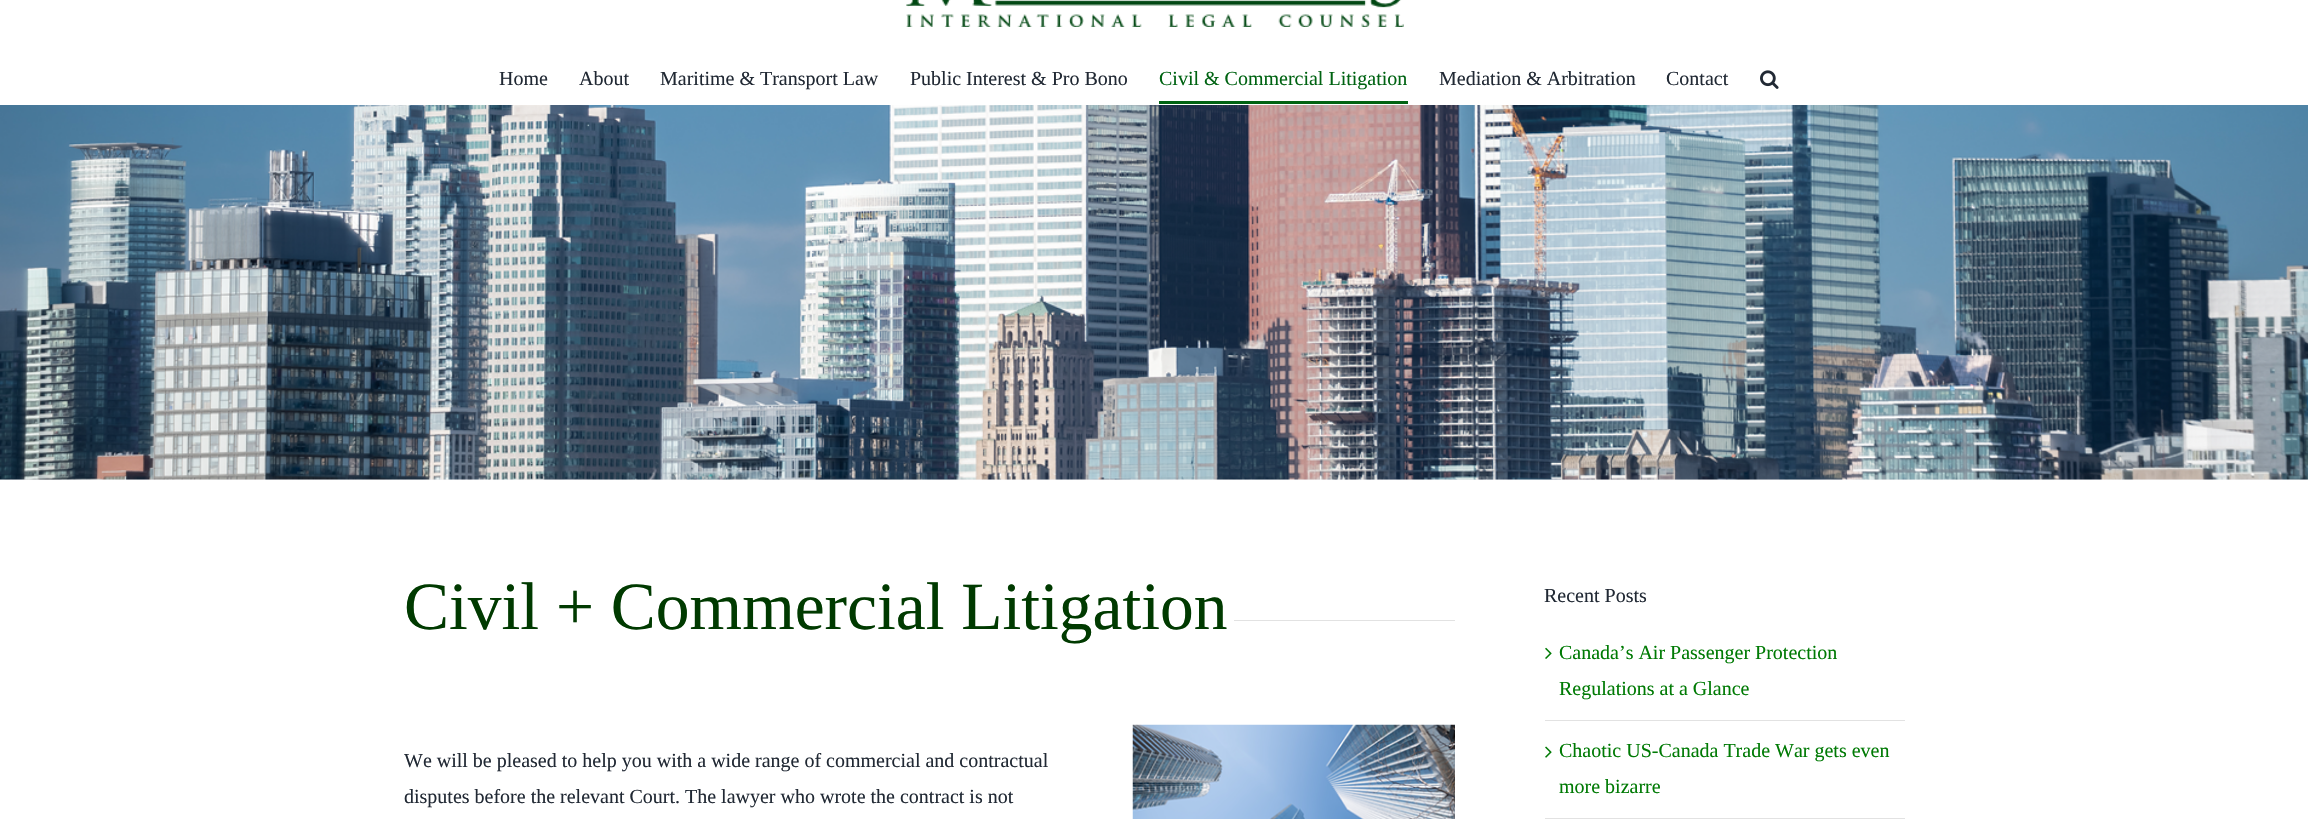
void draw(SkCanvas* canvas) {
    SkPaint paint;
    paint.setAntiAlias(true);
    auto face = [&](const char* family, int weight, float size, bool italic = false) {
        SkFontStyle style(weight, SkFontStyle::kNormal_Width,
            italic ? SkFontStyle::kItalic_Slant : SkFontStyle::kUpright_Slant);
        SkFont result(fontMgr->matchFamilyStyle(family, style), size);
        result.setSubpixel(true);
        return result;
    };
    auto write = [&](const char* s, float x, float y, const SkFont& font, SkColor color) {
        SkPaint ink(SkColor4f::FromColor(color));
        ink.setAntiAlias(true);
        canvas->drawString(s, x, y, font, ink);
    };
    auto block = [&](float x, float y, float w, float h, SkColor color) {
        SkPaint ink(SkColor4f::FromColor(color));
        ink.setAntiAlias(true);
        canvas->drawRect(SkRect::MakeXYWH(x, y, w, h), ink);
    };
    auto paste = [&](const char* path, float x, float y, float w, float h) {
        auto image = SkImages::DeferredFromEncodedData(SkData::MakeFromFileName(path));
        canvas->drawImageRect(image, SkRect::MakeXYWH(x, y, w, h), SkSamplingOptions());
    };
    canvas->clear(SK_ColorWHITE);
    paste("pic1.png", 906, 0, 498, 27);
    auto kFont1 = face("Liberation Serif", 400, 20);
    write("Home", 499, 85, kFont1, SkColorSetRGB(33, 41, 52));
    write("About", 579, 85, kFont1, SkColorSetRGB(33, 41, 52));
    write("Maritime & Transport Law", 660, 85, kFont1, SkColorSetRGB(33, 41, 52));
    write("Public Interest & Pro Bono", 910, 85, kFont1, SkColorSetRGB(33, 41, 52));
    write("Civil & Commercial Litigation", 1159, 85, kFont1, SkColorSetRGB(0, 99, 18));
    block(1159, 101, 249, 3, SkColorSetRGB(0, 99, 18));
    write("Mediation & Arbitration", 1439, 85, kFont1, SkColorSetRGB(33, 41, 52));
    write("Contact", 1666, 85, kFont1, SkColorSetRGB(33, 41, 52));
    paste("pic2.png", 1760, 70, 19, 19);
    block(0, 479, 2308, 1, SkColorSetRGB(242, 243, 245));
    paste("pic3.png", 0, 105, 2308, 375);
    auto kFont2 = face("Liberation Serif", 400, 67.5f);
    write("Civil + Commercial Litigation", 404, 629, kFont2, SkColorSetRGB(0, 58, 0));
    block(1234, 620, 221, 1, SkColorSetRGB(226, 226, 226));
    write("We will be pleased to help you with a wide range of commercial and contractual", 404, 767, kFont1, SkColorSetRGB(33, 41, 52));
    write("disputes before the relevant Court. The lawyer who wrote the contract is not", 404, 803, kFont1, SkColorSetRGB(33, 41, 52));
    paste("pic4.png", 1132, 724, 323, 95);
    write("Recent Posts", 1544, 602, kFont1, SkColorSetRGB(33, 41, 52));
    block(1545, 720, 360, 1, SkColorSetRGB(226, 226, 226));
    paste("pic5.png", 1545, 647, 7, 12);
    write("Canada’s Air Passenger Protection", 1559, 659, kFont1, SkColorSetRGB(0, 122, 4));
    write("Regulations at a Glance", 1559, 695, kFont1, SkColorSetRGB(0, 122, 4));
    block(1545, 818, 360, 1, SkColorSetRGB(226, 226, 226));
    paste("pic6.png", 1545, 746, 7, 12);
    write("Chaotic US-Canada Trade War gets even", 1559, 757, kFont1, SkColorSetRGB(0, 122, 4));
    write("more bizarre", 1559, 793, kFont1, SkColorSetRGB(0, 122, 4));
}
